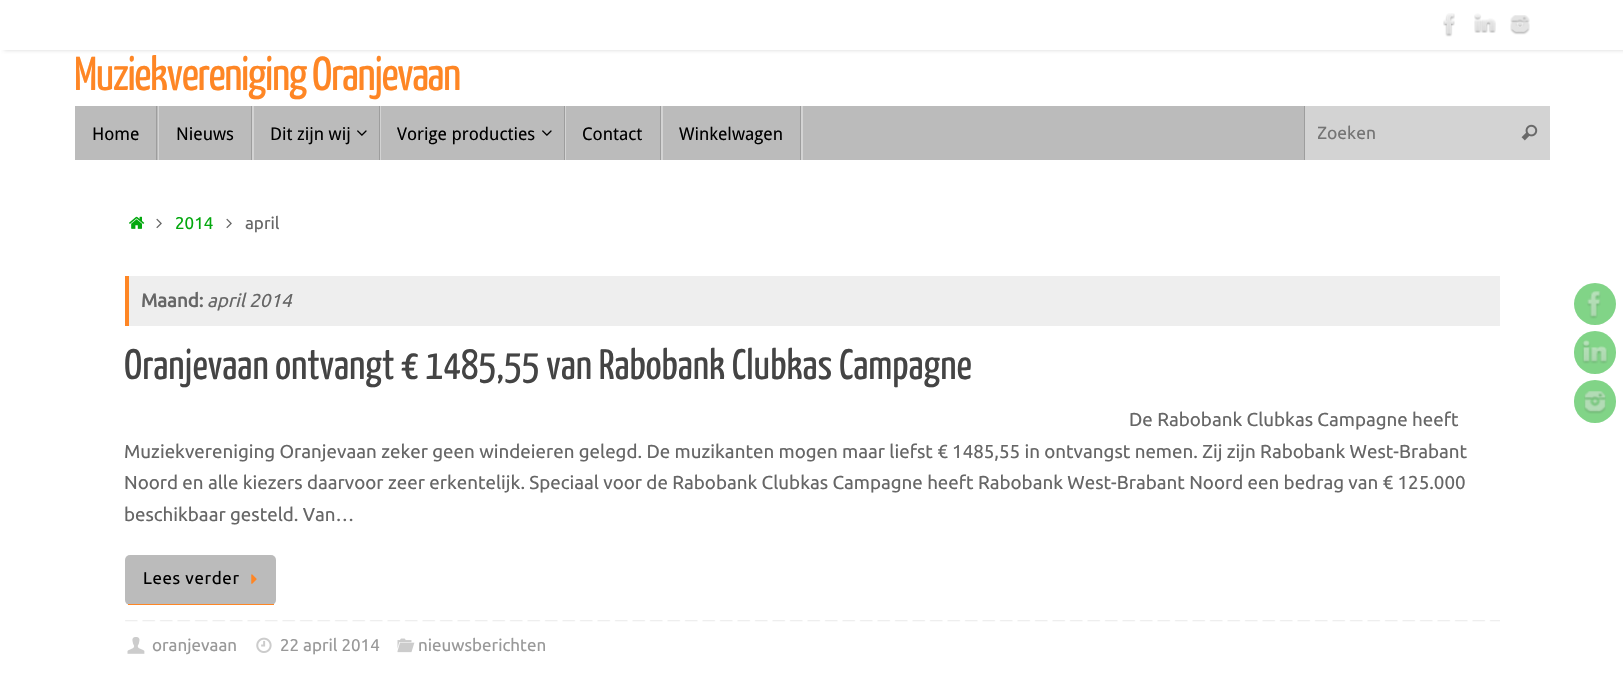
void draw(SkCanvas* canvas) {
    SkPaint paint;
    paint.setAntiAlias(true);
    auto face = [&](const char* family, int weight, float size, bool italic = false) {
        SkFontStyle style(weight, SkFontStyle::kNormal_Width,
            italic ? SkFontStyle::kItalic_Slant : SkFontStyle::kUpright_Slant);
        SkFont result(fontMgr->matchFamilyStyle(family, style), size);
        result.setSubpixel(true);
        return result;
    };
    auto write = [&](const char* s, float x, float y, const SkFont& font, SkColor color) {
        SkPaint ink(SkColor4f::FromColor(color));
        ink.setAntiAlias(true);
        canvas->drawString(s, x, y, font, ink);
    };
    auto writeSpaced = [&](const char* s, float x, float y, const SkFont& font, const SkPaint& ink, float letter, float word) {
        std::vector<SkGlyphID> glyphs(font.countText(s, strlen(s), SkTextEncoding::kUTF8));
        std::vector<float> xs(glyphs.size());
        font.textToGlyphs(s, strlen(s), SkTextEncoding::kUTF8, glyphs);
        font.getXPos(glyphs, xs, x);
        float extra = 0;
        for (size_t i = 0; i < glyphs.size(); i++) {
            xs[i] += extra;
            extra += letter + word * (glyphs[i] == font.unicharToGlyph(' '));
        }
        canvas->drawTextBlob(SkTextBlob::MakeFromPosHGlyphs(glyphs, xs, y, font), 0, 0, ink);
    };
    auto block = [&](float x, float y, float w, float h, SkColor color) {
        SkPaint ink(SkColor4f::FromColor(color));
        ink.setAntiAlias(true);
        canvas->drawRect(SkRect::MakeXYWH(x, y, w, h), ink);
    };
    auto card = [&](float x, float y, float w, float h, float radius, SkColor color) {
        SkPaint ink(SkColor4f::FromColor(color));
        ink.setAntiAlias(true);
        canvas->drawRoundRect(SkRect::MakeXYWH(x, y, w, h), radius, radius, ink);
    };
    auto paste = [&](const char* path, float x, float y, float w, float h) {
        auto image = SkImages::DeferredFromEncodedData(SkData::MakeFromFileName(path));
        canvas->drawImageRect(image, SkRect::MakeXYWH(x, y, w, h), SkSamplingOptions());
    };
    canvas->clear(SK_ColorWHITE);
    canvas->save();
    canvas->clipRect(SkRect::MakeXYWH(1, 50, 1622, 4));
    paint.setColor(SkColorSetRGB(215, 215, 215));
    paint.setMaskFilter(SkMaskFilter::MakeBlur(kNormal_SkBlurStyle, 2));
    canvas->drawRect(SkRect::MakeXYWH(4, 0, 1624, 50), paint);
    paint.setMaskFilter(nullptr);
    canvas->restore();
    paste("pic1.png", 1443, 13, 12, 24);
    paste("pic2.png", 1474, 13, 22, 20);
    paste("pic3.png", 1510, 15, 20, 20);
    auto kFont1 = face("Yanone Kaffeesatz", 400, 47.5f);
    paint.setColor(SkColorSetRGB(254, 134, 37));
    writeSpaced("Muziekvereniging Oranjevaan", 74, 90, kFont1, paint, -1.4f, 0);
    block(75, 106, 1229, 54, SkColorSetRGB(187, 187, 187));
    paint.setColor(SkColorSetRGB(211, 211, 211));
    canvas->drawPath(SkPathBuilder().moveTo(76, 106).lineTo(158, 106).lineTo(158, 160).lineTo(159, 160).lineTo(159, 106).close().detach(), paint);
    block(156, 106, 1, 54, SkColorSetRGB(157, 157, 157));
    auto kFont2 = face("Droid Sans", 400, 17.5f);
    write("Home", 92, 140, kFont2, SK_ColorBLACK);
    canvas->drawPath(SkPathBuilder().moveTo(159, 106).lineTo(252, 106).lineTo(252, 160).lineTo(254, 160).lineTo(254, 106).close().detach(), paint);
    block(251, 106, 1, 54, SkColorSetRGB(157, 157, 157));
    write("Nieuws", 176, 140, kFont2, SK_ColorBLACK);
    canvas->drawPath(SkPathBuilder().moveTo(254, 106).lineTo(380, 106).lineTo(380, 160).lineTo(381, 160).lineTo(381, 106).close().detach(), paint);
    block(379, 106, 1, 54, SkColorSetRGB(157, 157, 157));
    write("Dit zijn wij", 270, 140, kFont2, SK_ColorBLACK);
    paste("pic4.png", 357, 130, 10, 6);
    canvas->drawPath(SkPathBuilder().moveTo(381, 106).lineTo(565, 106).lineTo(565, 160).lineTo(566, 160).lineTo(566, 106).close().detach(), paint);
    block(564, 106, 1, 54, SkColorSetRGB(157, 157, 157));
    write("Vorige producties", 397, 140, kFont2, SK_ColorBLACK);
    paste("pic4.png", 542, 130, 10, 6);
    canvas->drawPath(SkPathBuilder().moveTo(566, 106).lineTo(661, 106).lineTo(661, 160).lineTo(663, 160).lineTo(663, 106).close().detach(), paint);
    block(660, 106, 1, 54, SkColorSetRGB(157, 157, 157));
    write("Contact", 582, 140, kFont2, SK_ColorBLACK);
    canvas->drawPath(SkPathBuilder().moveTo(663, 106).lineTo(801, 106).lineTo(801, 160).lineTo(803, 160).lineTo(803, 106).close().detach(), paint);
    block(800, 106, 1, 54, SkColorSetRGB(157, 157, 157));
    write("Winkelwagen", 679, 140, kFont2, SK_ColorBLACK);
    block(1305, 106, 245, 54, SkColorSetRGB(211, 211, 211));
    block(1304, 106, 1, 54, SkColorSetRGB(157, 157, 157));
    canvas->save();
    canvas->clipRect(SkRect::MakeXYWH(1318, 123, 177, 21));
    auto kFont3 = face("Ubuntu", 400, 17.5f);
    write("Zoeken", 1317, 139, kFont3, SkColorSetRGB(117, 117, 117));
    canvas->restore();
    paste("pic5.png", 1521, 124, 17, 17);
    paste("pic6.png", 129, 216, 16, 13);
    paste("pic7.png", 156, 218, 6, 11);
    auto kFont4 = face("Ubuntu", 400, 17);
    write("2014", 175, 229, kFont4, SkColorSetRGB(3, 168, 14));
    paste("pic7.png", 226, 218, 6, 11);
    write("april", 245, 229, kFont4, SkColorSetRGB(102, 102, 102));
    block(129, 276, 1371, 50, SkColorSetRGB(238, 238, 238));
    block(125, 276, 4, 50, SkColorSetRGB(254, 134, 37));
    auto kFont5 = face("Ubuntu", 700, 18.75f);
    write("Maand:", 141, 307, kFont5, SkColorSetRGB(102, 102, 102));
    auto kFont6 = face("Ubuntu", 400, 18.75f, true);
    write("april 2014", 207, 307, kFont6, SkColorSetRGB(102, 102, 102));
    auto kFont7 = face("Yanone Kaffeesatz", 400, 42.5f);
    write("Oranjevaan ontvangt € 1485,55 van Rabobank Clubkas Campagne", 124, 379, kFont7, SkColorSetRGB(68, 68, 68));
    auto kFont8 = face("Ubuntu", 400, 18.75f);
    write("De Rabobank Clubkas Campagne heeft", 1129, 426, kFont8, SkColorSetRGB(102, 102, 102));
    write("Muziekvereniging Oranjevaan zeker geen windeieren gelegd. De muzikanten mogen maar liefst € 1485,55 in ontvangst nemen. Zij zijn Rabobank West-Brabant", 124, 458, kFont8, SkColorSetRGB(102, 102, 102));
    write("Noord en alle kiezers daarvoor zeer erkentelijk. Speciaal voor de Rabobank Clubkas Campagne heeft Rabobank West-Brabant Noord een bedrag van € 125.000", 124, 489, kFont8, SkColorSetRGB(102, 102, 102));
    write("beschikbaar gesteld. Van…", 124, 521, kFont8, SkColorSetRGB(102, 102, 102));
    card(125, 555, 151, 50, 5, SkColorSetRGB(187, 187, 187));
    block(128, 604, 146, 1, SkColorSetRGB(254, 134, 37));
    paint.setColor(SK_ColorBLACK);
    writeSpaced("Lees verder", 143, 584, kFont4, paint, 0.6f, 0);
    paste("pic8.png", 251, 574, 6, 10);
    paste("pic9.png", 125, 620, 1375, 2);
    paste("pic10.png", 127, 637, 18, 17);
    write("oranjevaan", 152, 651, kFont4, SkColorSetRGB(153, 153, 153));
    paste("pic11.png", 256, 637, 16, 16);
    write("22 april 2014", 280, 651, kFont4, SkColorSetRGB(153, 153, 153));
    paste("pic12.png", 397, 638, 18, 15);
    write("nieuwsberichten", 418, 651, kFont4, SkColorSetRGB(153, 153, 153));
    paint.setColor(SkColorSetRGB(129, 212, 135));
    canvas->drawCircle(1595, 304, 21, paint);
    paste("pic13.png", 1587, 291, 14, 28);
    card(1574, 331, 42, 43, 21, SkColorSetRGB(129, 212, 135));
    paste("pic14.png", 1582, 340, 26, 24);
    card(1574, 380, 42, 43, 21, SkColorSetRGB(129, 212, 135));
    paste("pic15.png", 1584, 391, 22, 23);
}
